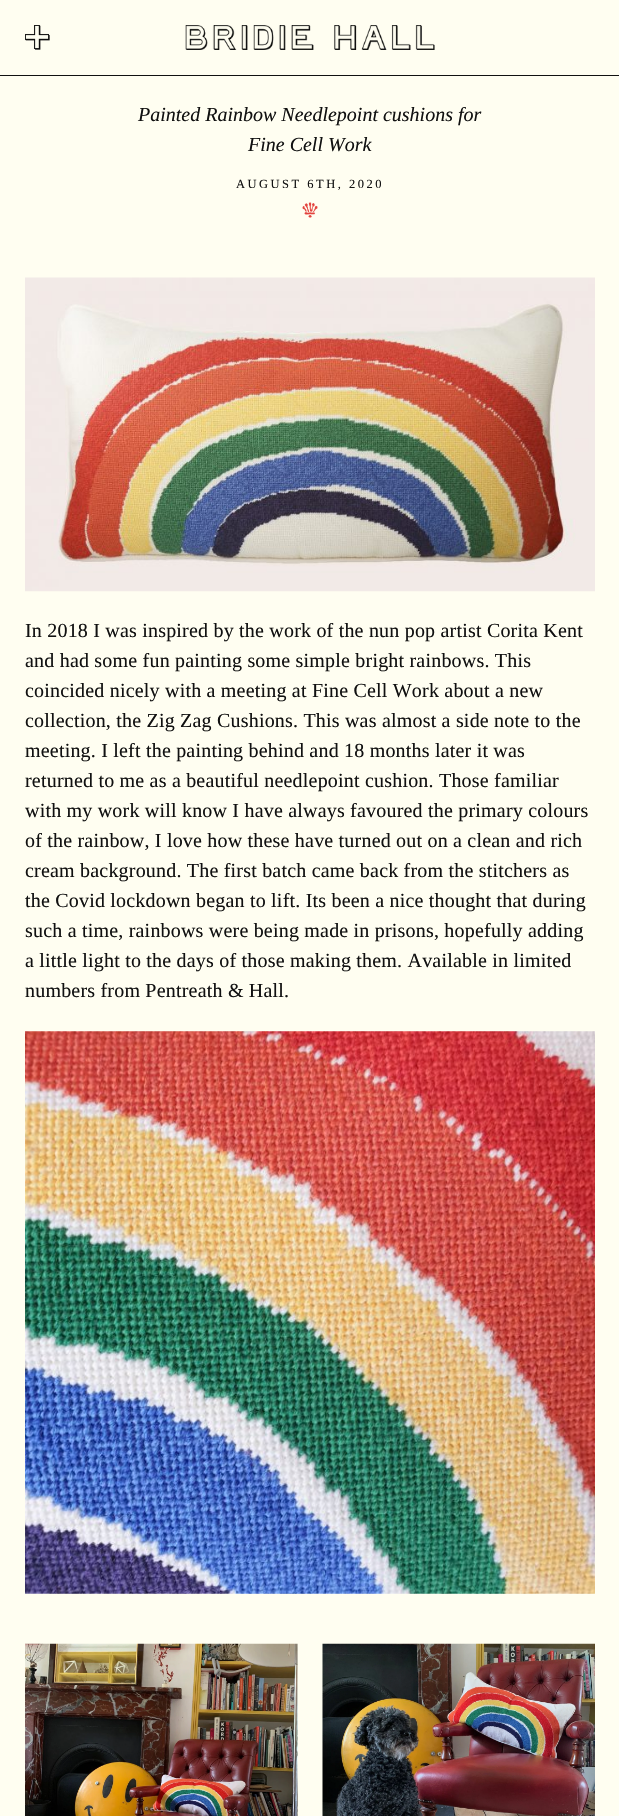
void draw(SkCanvas* canvas) {
    SkPaint paint;
    paint.setAntiAlias(true);
    auto face = [&](const char* family, int weight, float size, bool italic = false) {
        SkFontStyle style(weight, SkFontStyle::kNormal_Width,
            italic ? SkFontStyle::kItalic_Slant : SkFontStyle::kUpright_Slant);
        SkFont result(fontMgr->matchFamilyStyle(family, style), size);
        result.setSubpixel(true);
        return result;
    };
    auto write = [&](const char* s, float x, float y, const SkFont& font, SkColor color) {
        SkPaint ink(SkColor4f::FromColor(color));
        ink.setAntiAlias(true);
        canvas->drawString(s, x, y, font, ink);
    };
    auto writeSpaced = [&](const char* s, float x, float y, const SkFont& font, const SkPaint& ink, float letter, float word) {
        std::vector<SkGlyphID> glyphs(font.countText(s, strlen(s), SkTextEncoding::kUTF8));
        std::vector<float> xs(glyphs.size());
        font.textToGlyphs(s, strlen(s), SkTextEncoding::kUTF8, glyphs);
        font.getXPos(glyphs, xs, x);
        float extra = 0;
        for (size_t i = 0; i < glyphs.size(); i++) {
            xs[i] += extra;
            extra += letter + word * (glyphs[i] == font.unicharToGlyph(' '));
        }
        canvas->drawTextBlob(SkTextBlob::MakeFromPosHGlyphs(glyphs, xs, y, font), 0, 0, ink);
    };
    auto block = [&](float x, float y, float w, float h, SkColor color) {
        SkPaint ink(SkColor4f::FromColor(color));
        ink.setAntiAlias(true);
        canvas->drawRect(SkRect::MakeXYWH(x, y, w, h), ink);
    };
    auto paste = [&](const char* path, float x, float y, float w, float h) {
        auto image = SkImages::DeferredFromEncodedData(SkData::MakeFromFileName(path));
        canvas->drawImageRect(image, SkRect::MakeXYWH(x, y, w, h), SkSamplingOptions());
    };
    canvas->clear(SkColorSetRGB(255, 254, 241));
    block(0, 75, 619, 1, SkColorSetRGB(17, 17, 17));
    paste("pic1.png", 25, 25, 25, 25);
    paste("pic2.png", 185, 25, 250, 25);
    auto kFont1 = face("Liberation Serif", 400, 20, true);
    write("Painted Rainbow Needlepoint cushions for", 138, 121, kFont1, SkColorSetRGB(17, 17, 17));
    write("Fine Cell Work", 248, 151, kFont1, SkColorSetRGB(17, 17, 17));
    auto kFont2 = face("Liberation Serif", 400, 12.5f);
    paint.setColor(SkColorSetRGB(17, 17, 17));
    writeSpaced("AUGUST 6TH, 2020", 236, 188, kFont2, paint, 2.5f, 0);
    paste("pic3.png", 302, 202, 16, 16);
    paste("pic4.png", 25, 277, 570, 315);
    auto kFont3 = face("Liberation Serif", 400, 20);
    writeSpaced("In 2018 I was inspired by the work of the nun pop artist Corita Kent", 25, 637, kFont3, paint, 0.2f, 0);
    writeSpaced("and had some fun painting some simple bright rainbows. This", 25, 667, kFont3, paint, 0.2f, 0);
    writeSpaced("coincided nicely with a meeting at Fine Cell Work about a new", 25, 697, kFont3, paint, 0.2f, 0);
    writeSpaced("collection, the Zig Zag Cushions. This was almost a side note to the", 25, 727, kFont3, paint, 0.2f, 0);
    writeSpaced("meeting. I left the painting behind and 18 months later it was", 25, 757, kFont3, paint, 0.2f, 0);
    writeSpaced("returned to me as a beautiful needlepoint cushion. Those familiar", 25, 787, kFont3, paint, 0.2f, 0);
    writeSpaced("with my work will know I have always favoured the primary colours", 25, 817, kFont3, paint, 0.2f, 0);
    writeSpaced("of the rainbow, I love how these have turned out on a clean and rich", 25, 847, kFont3, paint, 0.2f, 0);
    writeSpaced("cream background. The first batch came back from the stitchers as", 25, 877, kFont3, paint, 0.2f, 0);
    writeSpaced("the Covid lockdown began to lift. Its been a nice thought that during", 25, 907, kFont3, paint, 0.2f, 0);
    writeSpaced("such a time, rainbows were being made in prisons, hopefully adding", 25, 937, kFont3, paint, 0.2f, 0);
    writeSpaced("a little light to the days of those making them. Available in limited", 25, 967, kFont3, paint, 0.2f, 0);
    writeSpaced("numbers from Pentreath & Hall.", 25, 997, kFont3, paint, 0.2f, 0);
    paste("pic5.png", 25, 1031, 570, 563);
    paste("pic6.png", 25, 1643, 273, 173);
    paste("pic7.png", 322, 1643, 273, 173);
}
